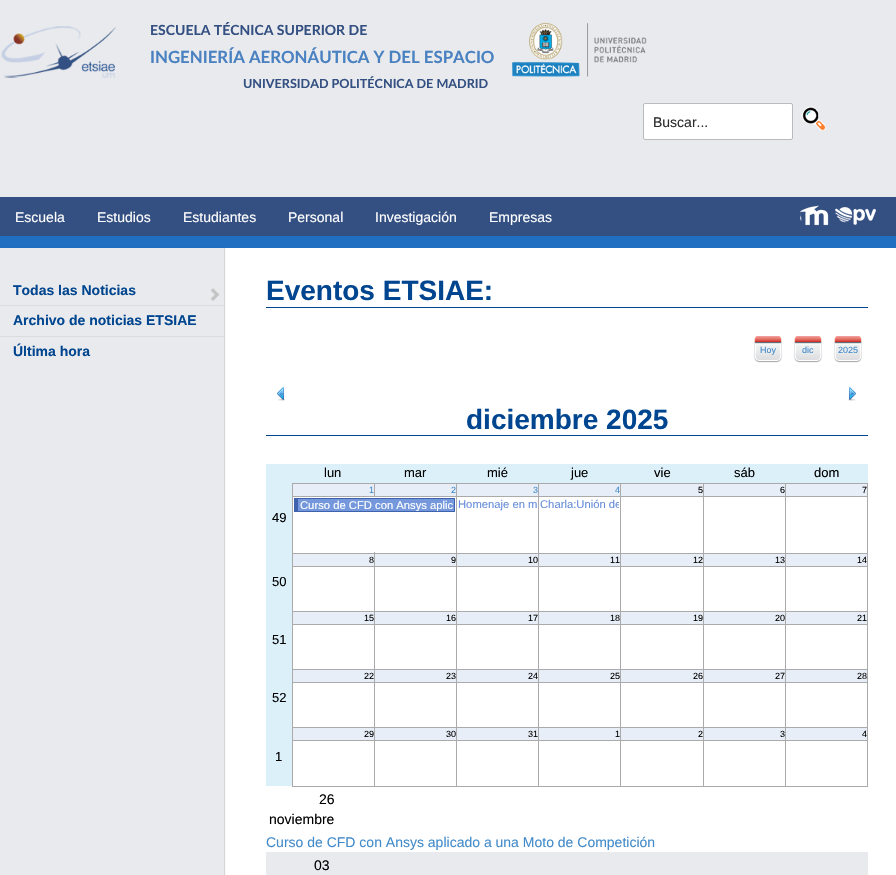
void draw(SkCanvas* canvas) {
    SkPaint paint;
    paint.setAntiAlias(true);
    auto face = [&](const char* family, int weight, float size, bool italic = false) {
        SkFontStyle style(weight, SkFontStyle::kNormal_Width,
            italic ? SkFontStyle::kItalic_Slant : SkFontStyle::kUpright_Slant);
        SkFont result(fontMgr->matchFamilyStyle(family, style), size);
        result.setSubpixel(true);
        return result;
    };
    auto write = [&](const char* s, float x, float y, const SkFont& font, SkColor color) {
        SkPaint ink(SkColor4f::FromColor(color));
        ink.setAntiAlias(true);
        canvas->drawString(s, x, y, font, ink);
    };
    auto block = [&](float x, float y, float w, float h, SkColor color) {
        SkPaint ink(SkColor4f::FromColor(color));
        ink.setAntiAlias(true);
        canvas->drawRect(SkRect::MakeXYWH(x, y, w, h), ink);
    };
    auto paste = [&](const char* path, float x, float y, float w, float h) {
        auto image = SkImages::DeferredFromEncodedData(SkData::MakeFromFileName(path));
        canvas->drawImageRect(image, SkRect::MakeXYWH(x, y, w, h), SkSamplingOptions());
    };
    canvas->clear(SK_ColorWHITE);
    block(0, 0, 896, 197, SkColorSetRGB(232, 234, 237));
    paste("pic1.png", 1, 26, 115, 52);
    auto kFont1 = face("Lato", 700, 14);
    write("ESCUELA TÉCNICA SUPERIOR DE", 150, 35, kFont1, SkColorSetRGB(52, 80, 130));
    auto kFont2 = face("Lato", 700, 16.8f);
    write("INGENIERÍA AERONÁUTICA Y DEL ESPACIO", 150, 63, kFont2, SkColorSetRGB(74, 129, 193));
    auto kFont3 = face("Lato", 700, 12.6f);
    write("UNIVERSIDAD POLITÉCNICA DE MADRID", 243, 88, kFont3, SkColorSetRGB(52, 80, 130));
    paste("pic2.png", 512, 22, 135, 55);
    paint.setColor(SK_ColorWHITE);
    canvas->drawRoundRect(SkRect::MakeXYWH(643.5f, 103.5f, 149, 36), 1.5f, 1.5f, paint);
    paint.setStyle(SkPaint::kStroke_Style);
    paint.setStrokeWidth(1);
    paint.setColor(SkColorSetRGB(187, 187, 187));
    canvas->drawRoundRect(SkRect::MakeXYWH(643.5f, 103.5f, 149, 36), 1.5f, 1.5f, paint);
    auto kFont4 = face("Liberation Sans", 400, 14);
    write("Buscar...", 653, 127, kFont4, SkColorSetRGB(43, 43, 43));
    paste("pic3.png", 801, 106, 25, 25);
    block(0, 197, 896, 39, SkColorSetRGB(52, 80, 130));
    write("Escuela", 15, 222, kFont4, SK_ColorWHITE);
    write("Estudios", 97, 222, kFont4, SK_ColorWHITE);
    write("Estudiantes", 183, 222, kFont4, SK_ColorWHITE);
    write("Personal", 288, 222, kFont4, SK_ColorWHITE);
    write("Investigación", 375, 222, kFont4, SK_ColorWHITE);
    write("Empresas", 489, 222, kFont4, SK_ColorWHITE);
    paste("pic4.png", 800, 205, 29, 21);
    paste("pic5.png", 835, 207, 41, 18);
    block(0, 236, 896, 12, SkColorSetRGB(33, 111, 192));
    paint.setStyle(SkPaint::kFill_Style);
    paint.setColor(SkColorSetARGB(51, 50, 50, 50));
    paint.setMaskFilter(SkMaskFilter::MakeBlur(kNormal_SkBlurStyle, 0.5f));
    canvas->drawRect(SkRect::MakeXYWH(1, 248, 224, 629), paint);
    paint.setMaskFilter(nullptr);
    block(0, 248, 224, 627, SkColorSetRGB(232, 234, 237));
    block(0, 305, 224, 1, SkColorSetRGB(218, 221, 224));
    auto kFont5 = face("Liberation Sans", 700, 14);
    write("Todas las Noticias", 13, 295, kFont5, SkColorSetRGB(0, 69, 143));
    paste("pic6.png", 210, 288, 10, 13);
    block(0, 336, 224, 1, SkColorSetRGB(218, 221, 224));
    write("Archivo de noticias ETSIAE", 13, 325, kFont5, SkColorSetRGB(0, 69, 143));
    write("Última hora", 13, 356, kFont5, SkColorSetRGB(0, 69, 143));
    block(266, 307, 602, 1, SkColorSetRGB(0, 69, 143));
    auto kFont6 = face("Liberation Sans", 700, 28);
    write("Eventos ETSIAE:", 266, 300, kFont6, SkColorSetRGB(0, 69, 143));
    paste("pic7.png", 754, 336, 28, 27);
    auto kFont7 = face("Liberation Sans", 400, 9);
    write("Hoy", 760, 353, kFont7, SkColorSetRGB(66, 139, 202));
    paste("pic7.png", 794, 336, 28, 27);
    write("dic", 802, 353, kFont7, SkColorSetRGB(66, 139, 202));
    paste("pic7.png", 834, 336, 28, 27);
    write("2025", 838, 353, kFont7, SkColorSetRGB(66, 139, 202));
    paste("pic8.png", 277, 387, 8, 14);
    paste("pic9.png", 848, 387, 8, 14);
    block(266, 435, 602, 1, SkColorSetRGB(0, 69, 143));
    write("diciembre 2025", 466, 429, kFont6, SkColorSetRGB(0, 69, 143));
    block(266, 464, 26, 322, SkColorSetRGB(220, 240, 250));
    block(292, 464, 576, 19, SkColorSetRGB(220, 240, 250));
    auto kFont8 = face("Liberation Sans", 400, 13);
    write("lun", 324, 477, kFont8, SK_ColorBLACK);
    write("mar", 404, 477, kFont8, SK_ColorBLACK);
    write("mié", 487, 477, kFont8, SK_ColorBLACK);
    write("jue", 571, 477, kFont8, SK_ColorBLACK);
    write("vie", 654, 477, kFont8, SK_ColorBLACK);
    write("sáb", 734, 477, kFont8, SK_ColorBLACK);
    write("dom", 814, 477, kFont8, SK_ColorBLACK);
    block(293, 484, 81, 12, SkColorSetRGB(232, 238, 247));
    block(785, 483, 83, 1, SkColorSetRGB(170, 170, 170));
    block(785, 553, 83, 1, SkColorSetRGB(170, 170, 170));
    block(785, 611, 83, 1, SkColorSetRGB(170, 170, 170));
    block(785, 669, 83, 1, SkColorSetRGB(170, 170, 170));
    block(785, 727, 83, 1, SkColorSetRGB(170, 170, 170));
    block(867, 740, 1, 46, SkColorSetRGB(170, 170, 170));
    block(867, 682, 1, 59, SkColorSetRGB(170, 170, 170));
    block(867, 624, 1, 59, SkColorSetRGB(170, 170, 170));
    block(867, 566, 1, 59, SkColorSetRGB(170, 170, 170));
    block(867, 496, 1, 71, SkColorSetRGB(170, 170, 170));
    block(867, 483, 1, 14, SkColorSetRGB(170, 170, 170));
    block(785, 740, 1, 46, SkColorSetRGB(170, 170, 170));
    block(785, 740, 83, 1, SkColorSetRGB(170, 170, 170));
    block(785, 727, 1, 14, SkColorSetRGB(170, 170, 170));
    block(703, 727, 83, 1, SkColorSetRGB(170, 170, 170));
    block(785, 682, 1, 46, SkColorSetRGB(170, 170, 170));
    block(785, 682, 83, 1, SkColorSetRGB(170, 170, 170));
    block(785, 669, 1, 14, SkColorSetRGB(170, 170, 170));
    block(703, 669, 83, 1, SkColorSetRGB(170, 170, 170));
    block(785, 624, 1, 46, SkColorSetRGB(170, 170, 170));
    block(785, 624, 83, 1, SkColorSetRGB(170, 170, 170));
    block(785, 611, 1, 14, SkColorSetRGB(170, 170, 170));
    block(703, 611, 83, 1, SkColorSetRGB(170, 170, 170));
    block(785, 566, 1, 46, SkColorSetRGB(170, 170, 170));
    block(785, 566, 83, 1, SkColorSetRGB(170, 170, 170));
    block(785, 553, 1, 14, SkColorSetRGB(170, 170, 170));
    block(703, 553, 83, 1, SkColorSetRGB(170, 170, 170));
    block(785, 496, 1, 58, SkColorSetRGB(170, 170, 170));
    block(785, 496, 83, 1, SkColorSetRGB(170, 170, 170));
    block(785, 483, 1, 14, SkColorSetRGB(170, 170, 170));
    block(703, 483, 83, 1, SkColorSetRGB(170, 170, 170));
    block(703, 740, 1, 46, SkColorSetRGB(170, 170, 170));
    block(703, 740, 83, 1, SkColorSetRGB(170, 170, 170));
    block(703, 727, 1, 14, SkColorSetRGB(170, 170, 170));
    block(620, 727, 84, 1, SkColorSetRGB(170, 170, 170));
    block(703, 682, 1, 46, SkColorSetRGB(170, 170, 170));
    block(703, 682, 83, 1, SkColorSetRGB(170, 170, 170));
    block(703, 669, 1, 14, SkColorSetRGB(170, 170, 170));
    block(620, 669, 84, 1, SkColorSetRGB(170, 170, 170));
    block(703, 624, 1, 46, SkColorSetRGB(170, 170, 170));
    block(703, 624, 83, 1, SkColorSetRGB(170, 170, 170));
    block(703, 611, 1, 14, SkColorSetRGB(170, 170, 170));
    block(620, 611, 84, 1, SkColorSetRGB(170, 170, 170));
    block(703, 566, 1, 46, SkColorSetRGB(170, 170, 170));
    block(703, 566, 83, 1, SkColorSetRGB(170, 170, 170));
    block(703, 553, 1, 14, SkColorSetRGB(170, 170, 170));
    block(620, 553, 84, 1, SkColorSetRGB(170, 170, 170));
    block(703, 496, 1, 58, SkColorSetRGB(170, 170, 170));
    block(703, 496, 83, 1, SkColorSetRGB(170, 170, 170));
    block(703, 483, 1, 14, SkColorSetRGB(170, 170, 170));
    block(620, 483, 84, 1, SkColorSetRGB(170, 170, 170));
    block(620, 740, 1, 46, SkColorSetRGB(170, 170, 170));
    block(620, 740, 84, 1, SkColorSetRGB(170, 170, 170));
    block(620, 727, 1, 14, SkColorSetRGB(170, 170, 170));
    block(538, 727, 83, 1, SkColorSetRGB(170, 170, 170));
    block(620, 682, 1, 46, SkColorSetRGB(170, 170, 170));
    block(620, 682, 84, 1, SkColorSetRGB(170, 170, 170));
    block(620, 669, 1, 14, SkColorSetRGB(170, 170, 170));
    block(538, 669, 83, 1, SkColorSetRGB(170, 170, 170));
    block(620, 624, 1, 46, SkColorSetRGB(170, 170, 170));
    block(620, 624, 84, 1, SkColorSetRGB(170, 170, 170));
    block(620, 611, 1, 14, SkColorSetRGB(170, 170, 170));
    block(538, 611, 83, 1, SkColorSetRGB(170, 170, 170));
    block(620, 566, 1, 46, SkColorSetRGB(170, 170, 170));
    block(620, 566, 84, 1, SkColorSetRGB(170, 170, 170));
    block(620, 553, 1, 14, SkColorSetRGB(170, 170, 170));
    block(538, 553, 83, 1, SkColorSetRGB(170, 170, 170));
    block(620, 496, 1, 58, SkColorSetRGB(170, 170, 170));
    block(620, 496, 84, 1, SkColorSetRGB(170, 170, 170));
    block(620, 483, 1, 14, SkColorSetRGB(170, 170, 170));
    block(538, 483, 83, 1, SkColorSetRGB(170, 170, 170));
    block(538, 740, 1, 46, SkColorSetRGB(170, 170, 170));
    block(538, 740, 83, 1, SkColorSetRGB(170, 170, 170));
    block(538, 727, 1, 14, SkColorSetRGB(170, 170, 170));
    block(456, 727, 83, 1, SkColorSetRGB(170, 170, 170));
    block(538, 682, 1, 46, SkColorSetRGB(170, 170, 170));
    block(538, 682, 83, 1, SkColorSetRGB(170, 170, 170));
    block(538, 669, 1, 14, SkColorSetRGB(170, 170, 170));
    block(456, 669, 83, 1, SkColorSetRGB(170, 170, 170));
    block(538, 624, 1, 46, SkColorSetRGB(170, 170, 170));
    block(538, 624, 83, 1, SkColorSetRGB(170, 170, 170));
    block(538, 611, 1, 14, SkColorSetRGB(170, 170, 170));
    block(456, 611, 83, 1, SkColorSetRGB(170, 170, 170));
    block(538, 566, 1, 46, SkColorSetRGB(170, 170, 170));
    block(538, 566, 83, 1, SkColorSetRGB(170, 170, 170));
    block(538, 553, 1, 14, SkColorSetRGB(170, 170, 170));
    block(456, 553, 83, 1, SkColorSetRGB(170, 170, 170));
    block(538, 496, 1, 58, SkColorSetRGB(170, 170, 170));
    block(538, 496, 83, 1, SkColorSetRGB(170, 170, 170));
    block(538, 483, 1, 14, SkColorSetRGB(170, 170, 170));
    block(456, 483, 83, 1, SkColorSetRGB(170, 170, 170));
    block(456, 740, 1, 46, SkColorSetRGB(170, 170, 170));
    block(456, 740, 83, 1, SkColorSetRGB(170, 170, 170));
    block(456, 727, 1, 14, SkColorSetRGB(170, 170, 170));
    block(374, 727, 83, 1, SkColorSetRGB(170, 170, 170));
    block(456, 682, 1, 46, SkColorSetRGB(170, 170, 170));
    block(456, 682, 83, 1, SkColorSetRGB(170, 170, 170));
    block(456, 669, 1, 14, SkColorSetRGB(170, 170, 170));
    block(374, 669, 83, 1, SkColorSetRGB(170, 170, 170));
    block(456, 624, 1, 46, SkColorSetRGB(170, 170, 170));
    block(456, 624, 83, 1, SkColorSetRGB(170, 170, 170));
    block(456, 611, 1, 14, SkColorSetRGB(170, 170, 170));
    block(374, 611, 83, 1, SkColorSetRGB(170, 170, 170));
    block(456, 566, 1, 46, SkColorSetRGB(170, 170, 170));
    block(456, 566, 83, 1, SkColorSetRGB(170, 170, 170));
    block(456, 553, 1, 14, SkColorSetRGB(170, 170, 170));
    block(374, 553, 83, 1, SkColorSetRGB(170, 170, 170));
    block(456, 496, 1, 58, SkColorSetRGB(170, 170, 170));
    block(456, 496, 83, 1, SkColorSetRGB(170, 170, 170));
    block(456, 483, 1, 14, SkColorSetRGB(170, 170, 170));
    block(374, 483, 83, 1, SkColorSetRGB(170, 170, 170));
    block(374, 496, 83, 1, SkColorSetRGB(170, 170, 170));
    block(374, 483, 1, 14, SkColorSetRGB(170, 170, 170));
    block(292, 483, 83, 1, SkColorSetRGB(170, 170, 170));
    block(374, 740, 1, 46, SkColorSetRGB(170, 170, 170));
    block(374, 740, 83, 1, SkColorSetRGB(170, 170, 170));
    block(374, 727, 1, 14, SkColorSetRGB(170, 170, 170));
    block(292, 727, 83, 1, SkColorSetRGB(170, 170, 170));
    block(374, 682, 1, 46, SkColorSetRGB(170, 170, 170));
    block(374, 682, 83, 1, SkColorSetRGB(170, 170, 170));
    block(374, 669, 1, 14, SkColorSetRGB(170, 170, 170));
    block(292, 669, 83, 1, SkColorSetRGB(170, 170, 170));
    block(374, 624, 1, 46, SkColorSetRGB(170, 170, 170));
    block(374, 624, 83, 1, SkColorSetRGB(170, 170, 170));
    block(374, 611, 1, 14, SkColorSetRGB(170, 170, 170));
    block(292, 611, 83, 1, SkColorSetRGB(170, 170, 170));
    block(374, 566, 1, 46, SkColorSetRGB(170, 170, 170));
    block(374, 566, 83, 1, SkColorSetRGB(170, 170, 170));
    block(374, 553, 1, 14, SkColorSetRGB(170, 170, 170));
    block(292, 553, 83, 1, SkColorSetRGB(170, 170, 170));
    block(292, 786, 576, 1, SkColorSetRGB(170, 170, 170));
    block(292, 740, 1, 47, SkColorSetRGB(170, 170, 170));
    block(292, 740, 83, 1, SkColorSetRGB(170, 170, 170));
    block(292, 682, 1, 59, SkColorSetRGB(170, 170, 170));
    block(292, 682, 83, 1, SkColorSetRGB(170, 170, 170));
    block(292, 624, 1, 59, SkColorSetRGB(170, 170, 170));
    block(292, 624, 83, 1, SkColorSetRGB(170, 170, 170));
    block(292, 566, 1, 59, SkColorSetRGB(170, 170, 170));
    block(292, 566, 83, 1, SkColorSetRGB(170, 170, 170));
    block(292, 496, 1, 71, SkColorSetRGB(170, 170, 170));
    block(292, 496, 83, 1, SkColorSetRGB(170, 170, 170));
    block(292, 483, 1, 14, SkColorSetRGB(170, 170, 170));
    write("1", 369, 493, kFont7, SkColorSetRGB(66, 139, 202));
    block(375, 484, 81, 12, SkColorSetRGB(232, 238, 247));
    write("2", 451, 493, kFont7, SkColorSetRGB(66, 139, 202));
    block(457, 484, 81, 12, SkColorSetRGB(232, 238, 247));
    write("3", 533, 493, kFont7, SkColorSetRGB(66, 139, 202));
    block(539, 484, 81, 12, SkColorSetRGB(232, 238, 247));
    write("4", 615, 493, kFont7, SkColorSetRGB(66, 139, 202));
    block(621, 484, 82, 12, SkColorSetRGB(232, 238, 247));
    write("5", 698, 493, kFont7, SK_ColorBLACK);
    block(704, 484, 81, 12, SkColorSetRGB(232, 238, 247));
    write("6", 780, 493, kFont7, SK_ColorBLACK);
    block(786, 484, 81, 12, SkColorSetRGB(232, 238, 247));
    write("7", 862, 493, kFont7, SK_ColorBLACK);
    write("49", 272, 522, kFont8, SK_ColorBLACK);
    block(374, 552, 1, 2, SkColorSetRGB(170, 170, 170));
    block(298, 499, 156, 12, SkColorSetRGB(117, 152, 221));
    block(294, 498, 161, 1, SkColorSetRGB(62, 99, 172));
    block(454, 498, 1, 14, SkColorSetRGB(62, 99, 172));
    block(294, 511, 161, 1, SkColorSetRGB(62, 99, 172));
    block(294, 498, 4, 14, SkColorSetRGB(62, 99, 172));
    canvas->save();
    canvas->clipRect(SkRect::MakeXYWH(298, 499, 156, 12));
    auto kFont9 = face("Liberation Sans", 400, 11.25f);
    write("Curso de CFD con Ansys aplic", 300, 509, kFont9, SK_ColorWHITE);
    canvas->restore();
    write("Homenaje en m", 458, 508, kFont9, SkColorSetRGB(102, 140, 217));
    canvas->save();
    canvas->clipRect(SkRect::MakeXYWH(540, 498, 79, 12));
    write("Charla:Unión de", 540, 508, kFont9, SkColorSetRGB(102, 140, 217));
    canvas->restore();
    block(293, 554, 81, 12, SkColorSetRGB(232, 238, 247));
    write("8", 369, 563, kFont7, SK_ColorBLACK);
    block(375, 554, 81, 12, SkColorSetRGB(232, 238, 247));
    write("9", 451, 563, kFont7, SK_ColorBLACK);
    block(457, 554, 81, 12, SkColorSetRGB(232, 238, 247));
    write("10", 528, 563, kFont7, SK_ColorBLACK);
    block(539, 554, 81, 12, SkColorSetRGB(232, 238, 247));
    write("11", 610, 563, kFont7, SK_ColorBLACK);
    block(621, 554, 82, 12, SkColorSetRGB(232, 238, 247));
    write("12", 693, 563, kFont7, SK_ColorBLACK);
    block(704, 554, 81, 12, SkColorSetRGB(232, 238, 247));
    write("13", 775, 563, kFont7, SK_ColorBLACK);
    block(786, 554, 81, 12, SkColorSetRGB(232, 238, 247));
    write("14", 857, 563, kFont7, SK_ColorBLACK);
    write("50", 272, 586, kFont8, SK_ColorBLACK);
    block(293, 612, 81, 12, SkColorSetRGB(232, 238, 247));
    write("15", 364, 621, kFont7, SK_ColorBLACK);
    block(375, 612, 81, 12, SkColorSetRGB(232, 238, 247));
    write("16", 446, 621, kFont7, SK_ColorBLACK);
    block(457, 612, 81, 12, SkColorSetRGB(232, 238, 247));
    write("17", 528, 621, kFont7, SK_ColorBLACK);
    block(539, 612, 81, 12, SkColorSetRGB(232, 238, 247));
    write("18", 610, 621, kFont7, SK_ColorBLACK);
    block(621, 612, 82, 12, SkColorSetRGB(232, 238, 247));
    write("19", 693, 621, kFont7, SK_ColorBLACK);
    block(704, 612, 81, 12, SkColorSetRGB(232, 238, 247));
    write("20", 775, 621, kFont7, SK_ColorBLACK);
    block(786, 612, 81, 12, SkColorSetRGB(232, 238, 247));
    write("21", 857, 621, kFont7, SK_ColorBLACK);
    write("51", 272, 644, kFont8, SK_ColorBLACK);
    block(293, 670, 81, 12, SkColorSetRGB(232, 238, 247));
    write("22", 364, 679, kFont7, SK_ColorBLACK);
    block(375, 670, 81, 12, SkColorSetRGB(232, 238, 247));
    write("23", 446, 679, kFont7, SK_ColorBLACK);
    block(457, 670, 81, 12, SkColorSetRGB(232, 238, 247));
    write("24", 528, 679, kFont7, SK_ColorBLACK);
    block(539, 670, 81, 12, SkColorSetRGB(232, 238, 247));
    write("25", 610, 679, kFont7, SK_ColorBLACK);
    block(621, 670, 82, 12, SkColorSetRGB(232, 238, 247));
    write("26", 693, 679, kFont7, SK_ColorBLACK);
    block(704, 670, 81, 12, SkColorSetRGB(232, 238, 247));
    write("27", 775, 679, kFont7, SK_ColorBLACK);
    block(786, 670, 81, 12, SkColorSetRGB(232, 238, 247));
    write("28", 857, 679, kFont7, SK_ColorBLACK);
    write("52", 272, 702, kFont8, SK_ColorBLACK);
    block(293, 728, 81, 12, SkColorSetRGB(232, 238, 247));
    write("29", 364, 737, kFont7, SK_ColorBLACK);
    block(375, 728, 81, 12, SkColorSetRGB(232, 238, 247));
    write("30", 446, 737, kFont7, SK_ColorBLACK);
    block(457, 728, 81, 12, SkColorSetRGB(232, 238, 247));
    write("31", 528, 737, kFont7, SK_ColorBLACK);
    block(539, 728, 81, 12, SkColorSetRGB(232, 238, 247));
    write("1", 615, 737, kFont7, SK_ColorBLACK);
    block(621, 728, 82, 12, SkColorSetRGB(232, 238, 247));
    write("2", 698, 737, kFont7, SK_ColorBLACK);
    block(704, 728, 81, 12, SkColorSetRGB(232, 238, 247));
    write("3", 780, 737, kFont7, SK_ColorBLACK);
    block(786, 728, 81, 12, SkColorSetRGB(232, 238, 247));
    write("4", 862, 737, kFont7, SK_ColorBLACK);
    write("1", 275, 761, kFont8, SK_ColorBLACK);
    write("26", 319, 804, kFont4, SK_ColorBLACK);
    write("noviembre", 269, 824, kFont4, SK_ColorBLACK);
    write("Curso de CFD con Ansys aplicado a una Moto de Competición", 266, 847, kFont4, SkColorSetRGB(66, 139, 202));
    block(266, 852, 602, 23, SkColorSetRGB(232, 234, 237));
    write("03", 314, 870, kFont4, SK_ColorBLACK);
}
